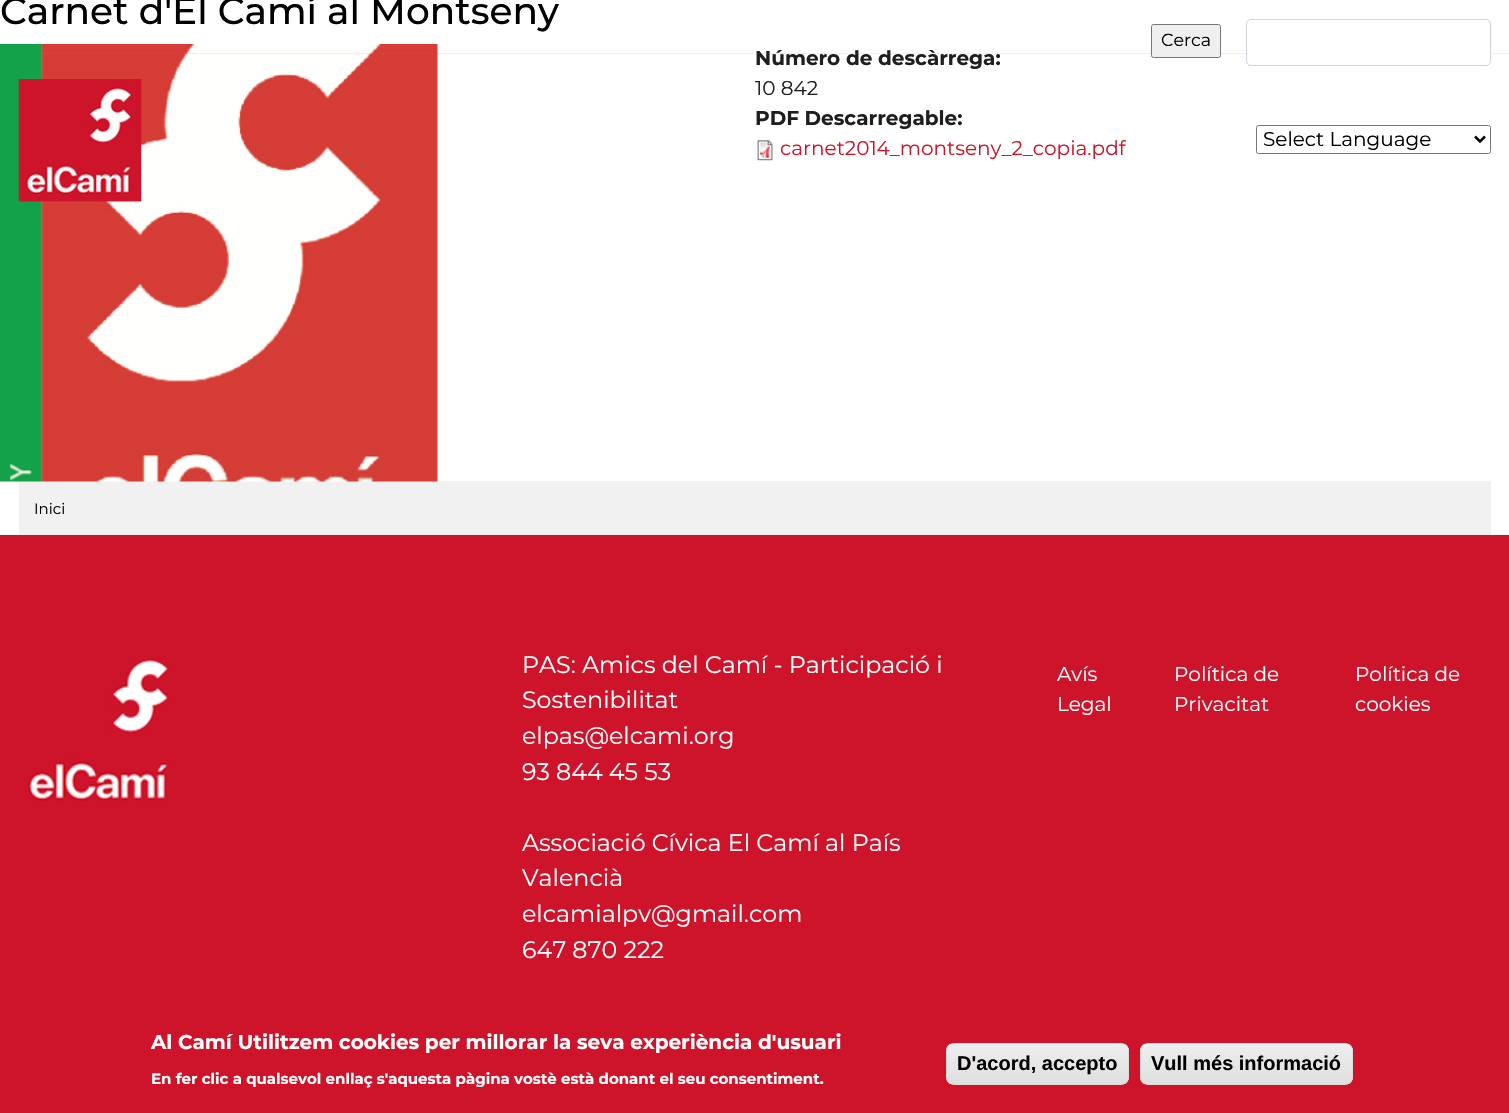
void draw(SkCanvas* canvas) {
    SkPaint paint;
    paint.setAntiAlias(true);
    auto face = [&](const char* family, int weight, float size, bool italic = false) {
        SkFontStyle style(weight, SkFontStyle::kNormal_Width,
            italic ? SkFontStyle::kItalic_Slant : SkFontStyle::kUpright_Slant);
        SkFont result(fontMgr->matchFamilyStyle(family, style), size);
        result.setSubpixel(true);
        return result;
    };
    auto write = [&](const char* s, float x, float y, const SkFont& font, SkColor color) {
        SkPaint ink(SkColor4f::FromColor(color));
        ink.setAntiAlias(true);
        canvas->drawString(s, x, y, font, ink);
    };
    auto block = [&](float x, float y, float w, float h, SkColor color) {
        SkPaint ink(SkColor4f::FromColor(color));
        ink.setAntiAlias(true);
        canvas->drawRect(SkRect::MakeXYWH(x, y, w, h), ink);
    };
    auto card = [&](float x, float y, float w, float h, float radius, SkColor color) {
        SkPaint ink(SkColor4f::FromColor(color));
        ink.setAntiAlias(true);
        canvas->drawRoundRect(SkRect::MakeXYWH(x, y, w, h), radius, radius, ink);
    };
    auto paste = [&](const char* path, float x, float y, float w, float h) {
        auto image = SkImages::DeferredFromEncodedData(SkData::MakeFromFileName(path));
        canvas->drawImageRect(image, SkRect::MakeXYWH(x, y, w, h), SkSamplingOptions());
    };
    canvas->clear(SK_ColorWHITE);
    auto kFont1 = face("Montserrat", 500, 37.5f);
    write("Carnet d'El Camí al Montseny", 0, 24, kFont1, SK_ColorBLACK);
    block(19, 481, 1472, 54, SkColorSetRGB(241, 241, 241));
    paste("pic1.png", 0, 44, 438, 438);
    auto kFont2 = face("Montserrat", 700, 20);
    write("Número de descàrrega:", 755, 65, kFont2, SkColorSetRGB(30, 30, 30));
    auto kFont3 = face("Montserrat", 400, 20);
    write("10 842", 755, 95, kFont3, SkColorSetRGB(30, 30, 30));
    write("PDF Descarregable:", 755, 125, kFont2, SkColorSetRGB(30, 30, 30));
    paste("pic2.png", 757, 140, 16, 21);
    write("carnet2014_montseny_2_copia.pdf", 780, 155, kFont3, SkColorSetRGB(206, 20, 43));
    auto kFont4 = face("Montserrat", 400, 15);
    write("Inici", 34, 514, kFont4, SK_ColorBLACK);
    block(0, 53, 1509, 1, SkColorSetARGB(33, 120, 130, 140));
    paint.setColor(SkColorSetRGB(239, 239, 239));
    canvas->drawRoundRect(SkRect::MakeXYWH(1151.5f, 24.5f, 69, 33), 2, 2, paint);
    paint.setStyle(SkPaint::kStroke_Style);
    paint.setStrokeWidth(1);
    paint.setColor(SkColorSetRGB(118, 118, 118));
    canvas->drawRoundRect(SkRect::MakeXYWH(1151.5f, 24.5f, 69, 33), 2, 2, paint);
    auto kFont5 = face("Montserrat", 400, 17.5f);
    write("Cerca", 1161, 46, kFont5, SK_ColorBLACK);
    card(1248, 20, 242, 45, 4, SK_ColorWHITE);
    paint.setColor(SkColorSetRGB(206, 212, 218));
    canvas->drawRoundRect(SkRect::MakeXYWH(1246.5f, 19.5f, 244, 46), 4.5f, 4.5f, paint);
    paste("pic3.png", 18, 79, 124, 123);
    paint.setColor(SkColorSetRGB(118, 118, 118));
    canvas->drawRoundRect(SkRect::MakeXYWH(1256.5f, 125.5f, 234, 28), 2, 2, paint);
    paint.setStrokeWidth(2.5f);
    paint.setColor(SK_ColorBLACK);
    canvas->drawPath(SkPathBuilder().moveTo(1475, 136.5f).lineTo(1480, 141.5f).lineTo(1485, 136.5f).detach(), paint);
    write("Select Language", 1263, 146, kFont3, SK_ColorBLACK);
    block(0, 535, 1509, 578, SkColorSetRGB(206, 20, 43));
    paste("pic4.png", 28, 659, 141, 142);
    auto kFont6 = face("Montserrat", 400, 23.75f);
    write("PAS: Amics del Camí - Participació i", 522, 673, kFont6, SK_ColorWHITE);
    write("Sostenibilitat", 522, 708, kFont6, SK_ColorWHITE);
    write("elpas@elcami.org", 522, 744, kFont6, SK_ColorWHITE);
    write("93 844 45 53", 522, 780, kFont6, SK_ColorWHITE);
    write("Associació Cívica El Camí al País", 522, 851, kFont6, SK_ColorWHITE);
    write("Valencià", 522, 886, kFont6, SK_ColorWHITE);
    write("elcamialpv@gmail.com", 522, 922, kFont6, SK_ColorWHITE);
    write("647 870 222", 522, 958, kFont6, SK_ColorWHITE);
    write("Avís", 1057, 681, kFont3, SK_ColorWHITE);
    write("Legal", 1057, 711, kFont3, SK_ColorWHITE);
    write("Política de", 1174, 681, kFont3, SK_ColorWHITE);
    write("Privacitat", 1174, 711, kFont3, SK_ColorWHITE);
    write("Política de", 1355, 681, kFont3, SK_ColorWHITE);
    write("cookies", 1355, 711, kFont3, SK_ColorWHITE);
    write("Al Camí Utilitzem cookies per millorar la seva experiència d'usuari", 151, 1049, kFont2, SK_ColorWHITE);
    auto kFont7 = face("Montserrat", 700, 15);
    write("En fer clic a qualsevol enllaç s'aquesta pàgina vostè està donant el seu consentiment.", 151, 1084, kFont7, SK_ColorWHITE);
    canvas->save();
    canvas->clipPath(SkPathBuilder().moveTo(954, 1043).lineTo(1121, 1043).cubicTo(1125.5f, 1043, 1129, 1046.5f, 1129, 1051).lineTo(1129, 1077).cubicTo(1129, 1081.5f, 1125.5f, 1085, 1121, 1085).lineTo(954, 1085).cubicTo(949.5f, 1085, 946, 1081.5f, 946, 1077).lineTo(946, 1051).cubicTo(946, 1046.5f, 949.5f, 1043, 954, 1043).close().detach(), true);
    paint.setStyle(SkPaint::kFill_Style);
    {
        const SkColor colors[] = {SkColorSetRGB(237, 237, 237), SkColorSetRGB(223, 223, 223)};
        const float stops[] = {0.05f, 1};
        const SkPoint ends[] = {{1038, 1044}, {1038, 1084}};
        paint.setShader(SkGradientShader::MakeLinear(ends, colors, stops, 2, SkTileMode::kClamp));
        paint.setAlpha(255);
    }
    canvas->drawRect(SkRect::MakeXYWH(946, 1044, 183, 40), paint);
    canvas->restore();
    paint.setShader(nullptr);
    paint.setColor(SK_ColorWHITE);
    canvas->drawPath(SkPathBuilder().moveTo(954, 1045).lineTo(1121, 1045).cubicTo(1125, 1045, 1128, 1048, 1128, 1051).lineTo(1128, 1050).cubicTo(1128, 1047, 1125, 1044, 1122, 1044).lineTo(954, 1044).cubicTo(951, 1044, 948, 1047, 948, 1050).lineTo(948, 1051).cubicTo(948, 1048, 950, 1045, 954, 1045).close().detach(), paint);
    paint.setStyle(SkPaint::kStroke_Style);
    paint.setStrokeWidth(1);
    paint.setColor(SkColorSetRGB(220, 220, 220));
    canvas->drawRoundRect(SkRect::MakeXYWH(946.5f, 1043.5f, 182, 41), 7.5f, 7.5f, paint);
    auto kFont8 = face("Liberation Sans", 700, 20);
    write("D'acord, accepto", 957, 1070, kFont8, SK_ColorBLACK);
    canvas->save();
    canvas->clipPath(SkPathBuilder().moveTo(1148, 1043).lineTo(1345, 1043).cubicTo(1349.5f, 1043, 1353, 1046.5f, 1353, 1051).lineTo(1353, 1077).cubicTo(1353, 1081.5f, 1349.5f, 1085, 1345, 1085).lineTo(1148, 1085).cubicTo(1143.5f, 1085, 1140, 1081.5f, 1140, 1077).lineTo(1140, 1051).cubicTo(1140, 1046.5f, 1143.5f, 1043, 1148, 1043).close().detach(), true);
    paint.setStyle(SkPaint::kFill_Style);
    {
        const SkColor colors[] = {SkColorSetRGB(237, 237, 237), SkColorSetRGB(223, 223, 223)};
        const float stops[] = {0.05f, 1};
        const SkPoint ends[] = {{1246, 1044}, {1246, 1084}};
        paint.setShader(SkGradientShader::MakeLinear(ends, colors, stops, 2, SkTileMode::kClamp));
        paint.setAlpha(255);
    }
    canvas->drawRect(SkRect::MakeXYWH(1140, 1044, 213, 40), paint);
    canvas->restore();
    paint.setShader(nullptr);
    paint.setColor(SK_ColorWHITE);
    canvas->drawPath(SkPathBuilder().moveTo(1148, 1045).lineTo(1345, 1045).cubicTo(1348, 1045, 1351, 1048, 1351, 1051).cubicTo(1351, 1048, 1350, 1045, 1346, 1044).lineTo(1146, 1044).cubicTo(1142, 1045, 1141, 1048, 1141, 1051).cubicTo(1141, 1048, 1144, 1045, 1148, 1045).close().detach(), paint);
    paint.setStyle(SkPaint::kStroke_Style);
    paint.setColor(SkColorSetRGB(220, 220, 220));
    canvas->drawRoundRect(SkRect::MakeXYWH(1140.5f, 1043.5f, 212, 41), 7.5f, 7.5f, paint);
    write("Vull més informació", 1151, 1070, kFont8, SK_ColorBLACK);
}
